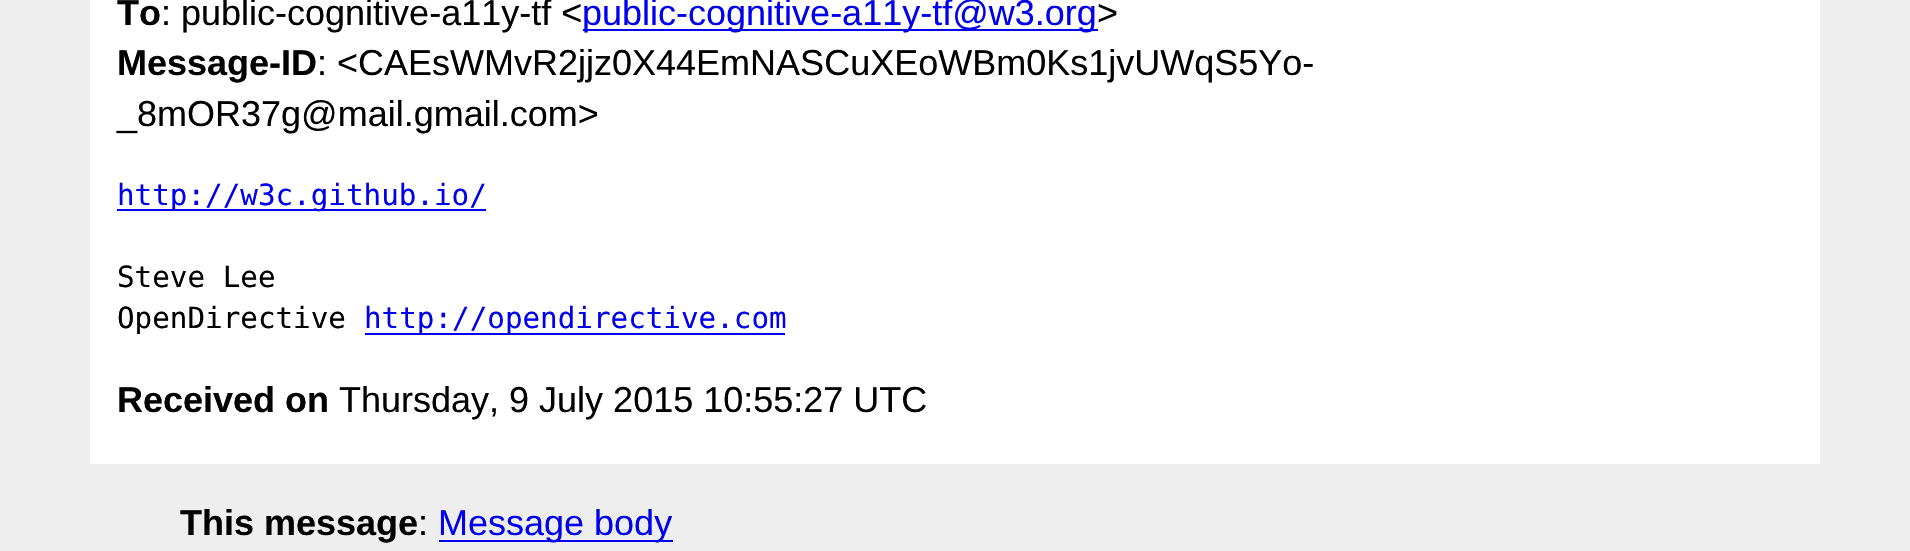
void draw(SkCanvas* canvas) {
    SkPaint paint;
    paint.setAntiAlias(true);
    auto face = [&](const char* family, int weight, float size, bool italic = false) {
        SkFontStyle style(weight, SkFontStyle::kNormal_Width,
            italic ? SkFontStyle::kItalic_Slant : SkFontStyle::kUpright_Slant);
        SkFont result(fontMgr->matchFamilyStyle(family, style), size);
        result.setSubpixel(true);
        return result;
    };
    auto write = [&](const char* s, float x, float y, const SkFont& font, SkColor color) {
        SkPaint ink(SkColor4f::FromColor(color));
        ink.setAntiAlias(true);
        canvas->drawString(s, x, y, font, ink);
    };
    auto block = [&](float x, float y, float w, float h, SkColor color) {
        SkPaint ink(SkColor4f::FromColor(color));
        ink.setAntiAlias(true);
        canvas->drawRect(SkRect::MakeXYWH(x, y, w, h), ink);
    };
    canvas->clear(SkColorSetRGB(238, 238, 238));
    block(90, 0, 1730, 464, SK_ColorWHITE);
    auto kFont1 = face("Liberation Sans", 700, 36);
    write("To", 117, 25, kFont1, SK_ColorBLACK);
    auto kFont2 = face("Liberation Sans", 400, 36);
    write(": public-cognitive-a11y-tf <", 161, 25, kFont2, SK_ColorBLACK);
    block(583, 29, 515, 2, SkColorSetRGB(0, 0, 238));
    write("public-cognitive-a11y-tf@w3.org", 582, 25, kFont2, SkColorSetRGB(0, 0, 238));
    write(">", 1097, 25, kFont2, SK_ColorBLACK);
    write("Message-ID", 117, 75, kFont1, SK_ColorBLACK);
    write(": <CAEsWMvR2jjz0X44EmNASCuXEoWBm0Ks1jvUWqS5Yo-", 317, 75, kFont2, SK_ColorBLACK);
    write("_8mOR37g@mail.gmail.com>", 117, 126, kFont2, SK_ColorBLACK);
    block(117, 209, 369, 2, SkColorSetRGB(0, 0, 238));
    auto kFont3 = face("DejaVu Sans Mono", 400, 29.25f);
    write("http://w3c.github.io/", 117, 205, kFont3, SkColorSetRGB(0, 0, 238));
    write("Steve Lee", 117, 287, kFont3, SK_ColorBLACK);
    write("OpenDirective", 117, 328, kFont3, SK_ColorBLACK);
    block(365, 333, 420, 2, SkColorSetRGB(0, 0, 238));
    write("http://opendirective.com", 364, 328, kFont3, SkColorSetRGB(0, 0, 238));
    write("Received on", 117, 412, kFont1, SK_ColorBLACK);
    write("Thursday, 9 July 2015 10:55:27 UTC", 339, 412, kFont2, SK_ColorBLACK);
    write("This message", 180, 535, kFont1, SK_ColorBLACK);
    write(":", 418, 535, kFont2, SK_ColorBLACK);
    block(439, 540, 234, 2, SkColorSetRGB(0, 0, 238));
    write("Message body", 438, 535, kFont2, SkColorSetRGB(0, 0, 238));
}
